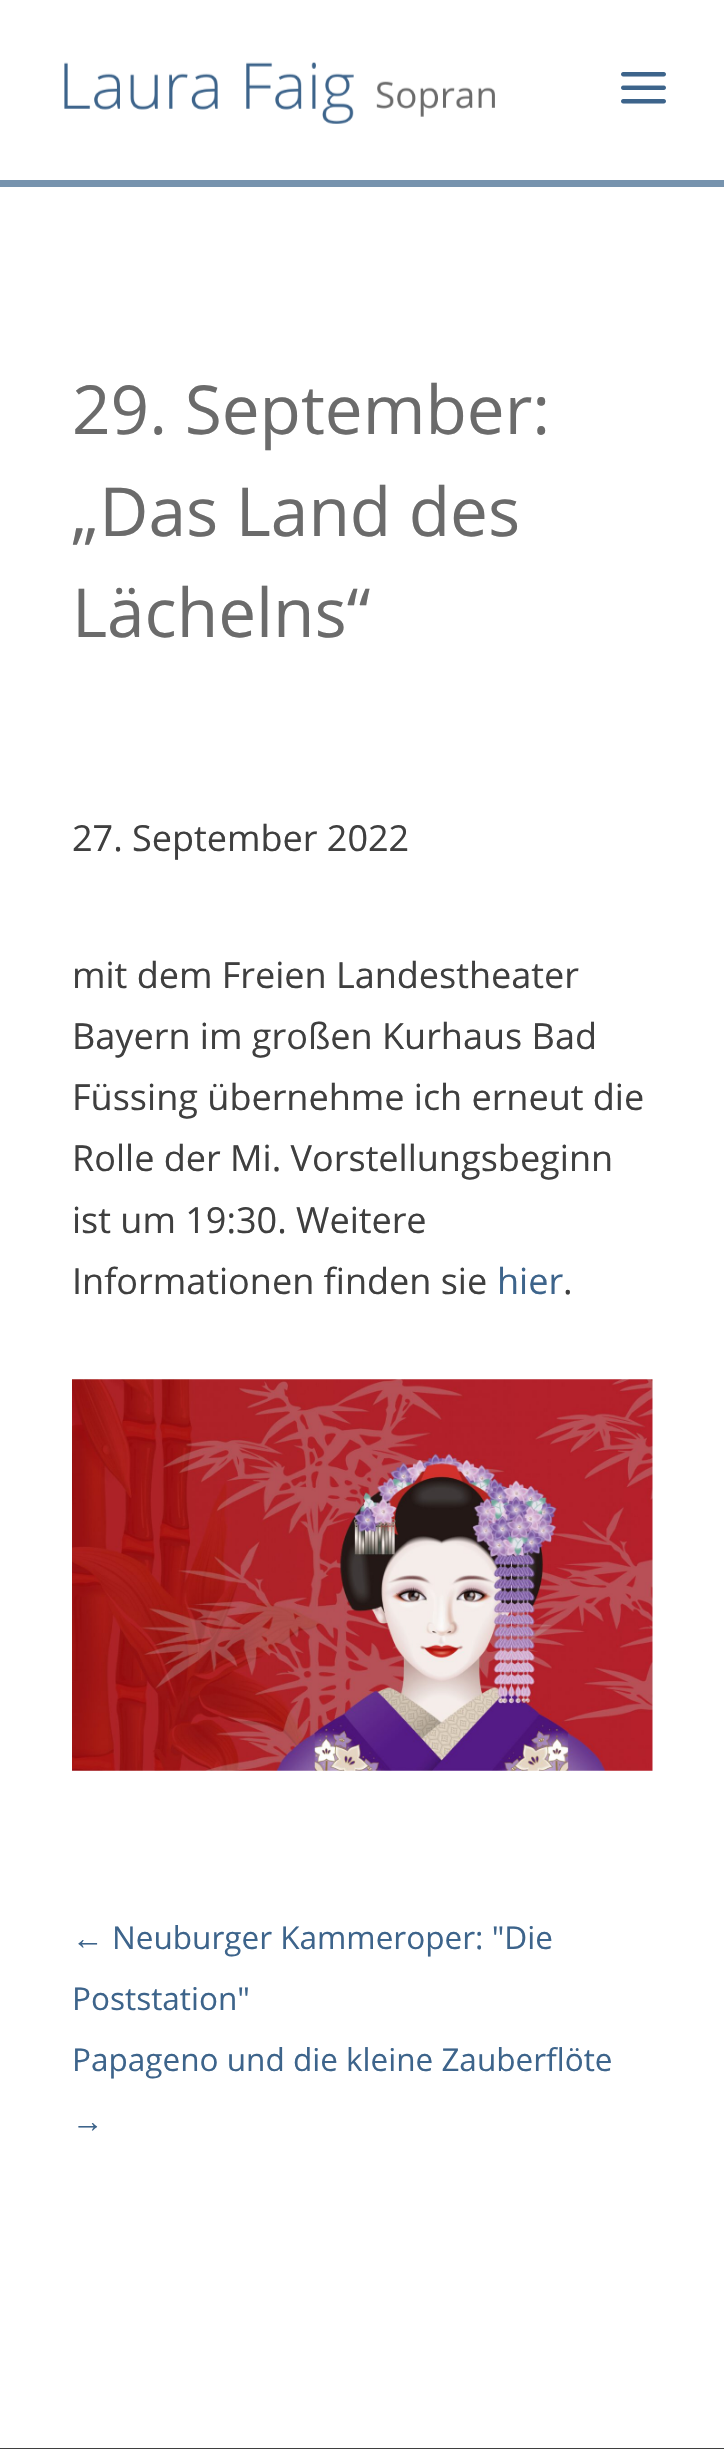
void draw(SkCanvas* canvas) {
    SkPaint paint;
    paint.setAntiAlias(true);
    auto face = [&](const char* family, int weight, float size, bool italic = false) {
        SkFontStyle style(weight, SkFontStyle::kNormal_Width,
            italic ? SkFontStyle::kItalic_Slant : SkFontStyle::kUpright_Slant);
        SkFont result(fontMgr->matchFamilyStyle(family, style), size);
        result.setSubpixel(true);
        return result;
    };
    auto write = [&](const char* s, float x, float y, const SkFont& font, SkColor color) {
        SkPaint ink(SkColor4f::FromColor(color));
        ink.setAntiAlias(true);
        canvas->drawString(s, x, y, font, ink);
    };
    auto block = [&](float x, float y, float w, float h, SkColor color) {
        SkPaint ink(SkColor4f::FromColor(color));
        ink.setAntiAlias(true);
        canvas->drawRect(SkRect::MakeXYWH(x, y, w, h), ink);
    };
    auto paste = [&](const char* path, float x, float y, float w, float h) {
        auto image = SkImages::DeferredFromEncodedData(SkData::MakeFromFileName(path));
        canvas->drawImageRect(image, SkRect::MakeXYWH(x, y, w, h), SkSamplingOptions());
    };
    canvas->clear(SK_ColorWHITE);
    block(0, 180, 724, 7, SkColorSetRGB(119, 147, 174));
    paste("pic1.png", 64, 62, 431, 62);
    paste("pic2.png", 621, 72, 45, 32);
    auto kFont1 = face("Open Sans", 400, 67.5f);
    write("29. September:", 72, 434, kFont1, SkColorSetRGB(107, 107, 107));
    write("„Das Land des", 72, 536, kFont1, SkColorSetRGB(107, 107, 107));
    write("Lächelns“", 72, 637, kFont1, SkColorSetRGB(107, 107, 107));
    auto kFont2 = face("Open Sans", 400, 36);
    write("27. September 2022", 72, 851, kFont2, SkColorSetRGB(63, 63, 63));
    write("mit dem Freien Landestheater", 72, 988, kFont2, SkColorSetRGB(63, 63, 63));
    write("Bayern im großen Kurhaus Bad", 72, 1049, kFont2, SkColorSetRGB(63, 63, 63));
    write("Füssing übernehme ich erneut die", 72, 1110, kFont2, SkColorSetRGB(63, 63, 63));
    write("Rolle der Mi. Vorstellungsbeginn", 72, 1171, kFont2, SkColorSetRGB(63, 63, 63));
    write("ist um 19:30. Weitere", 72, 1233, kFont2, SkColorSetRGB(63, 63, 63));
    write("Informationen finden sie", 72, 1294, kFont2, SkColorSetRGB(63, 63, 63));
    write("hier", 497, 1294, kFont2, SkColorSetRGB(61, 100, 139));
    write(".", 563, 1294, kFont2, SkColorSetRGB(63, 63, 63));
    paste("pic3.png", 72, 1379, 581, 392);
    auto kFont3 = face("Liberation Serif", 400, 31.5f);
    write("←", 72, 1949, kFont3, SkColorSetRGB(61, 100, 139));
    auto kFont4 = face("Open Sans", 400, 31.5f);
    write("Neuburger Kammeroper: \"Die", 112, 1949, kFont4, SkColorSetRGB(61, 100, 139));
    write("Poststation\"", 72, 2010, kFont4, SkColorSetRGB(61, 100, 139));
    write("Papageno und die kleine Zauberflöte", 72, 2071, kFont4, SkColorSetRGB(61, 100, 139));
    write("→", 72, 2132, kFont3, SkColorSetRGB(61, 100, 139));
    block(0, 2448, 724, 1, SkColorSetRGB(63, 63, 63));
}
